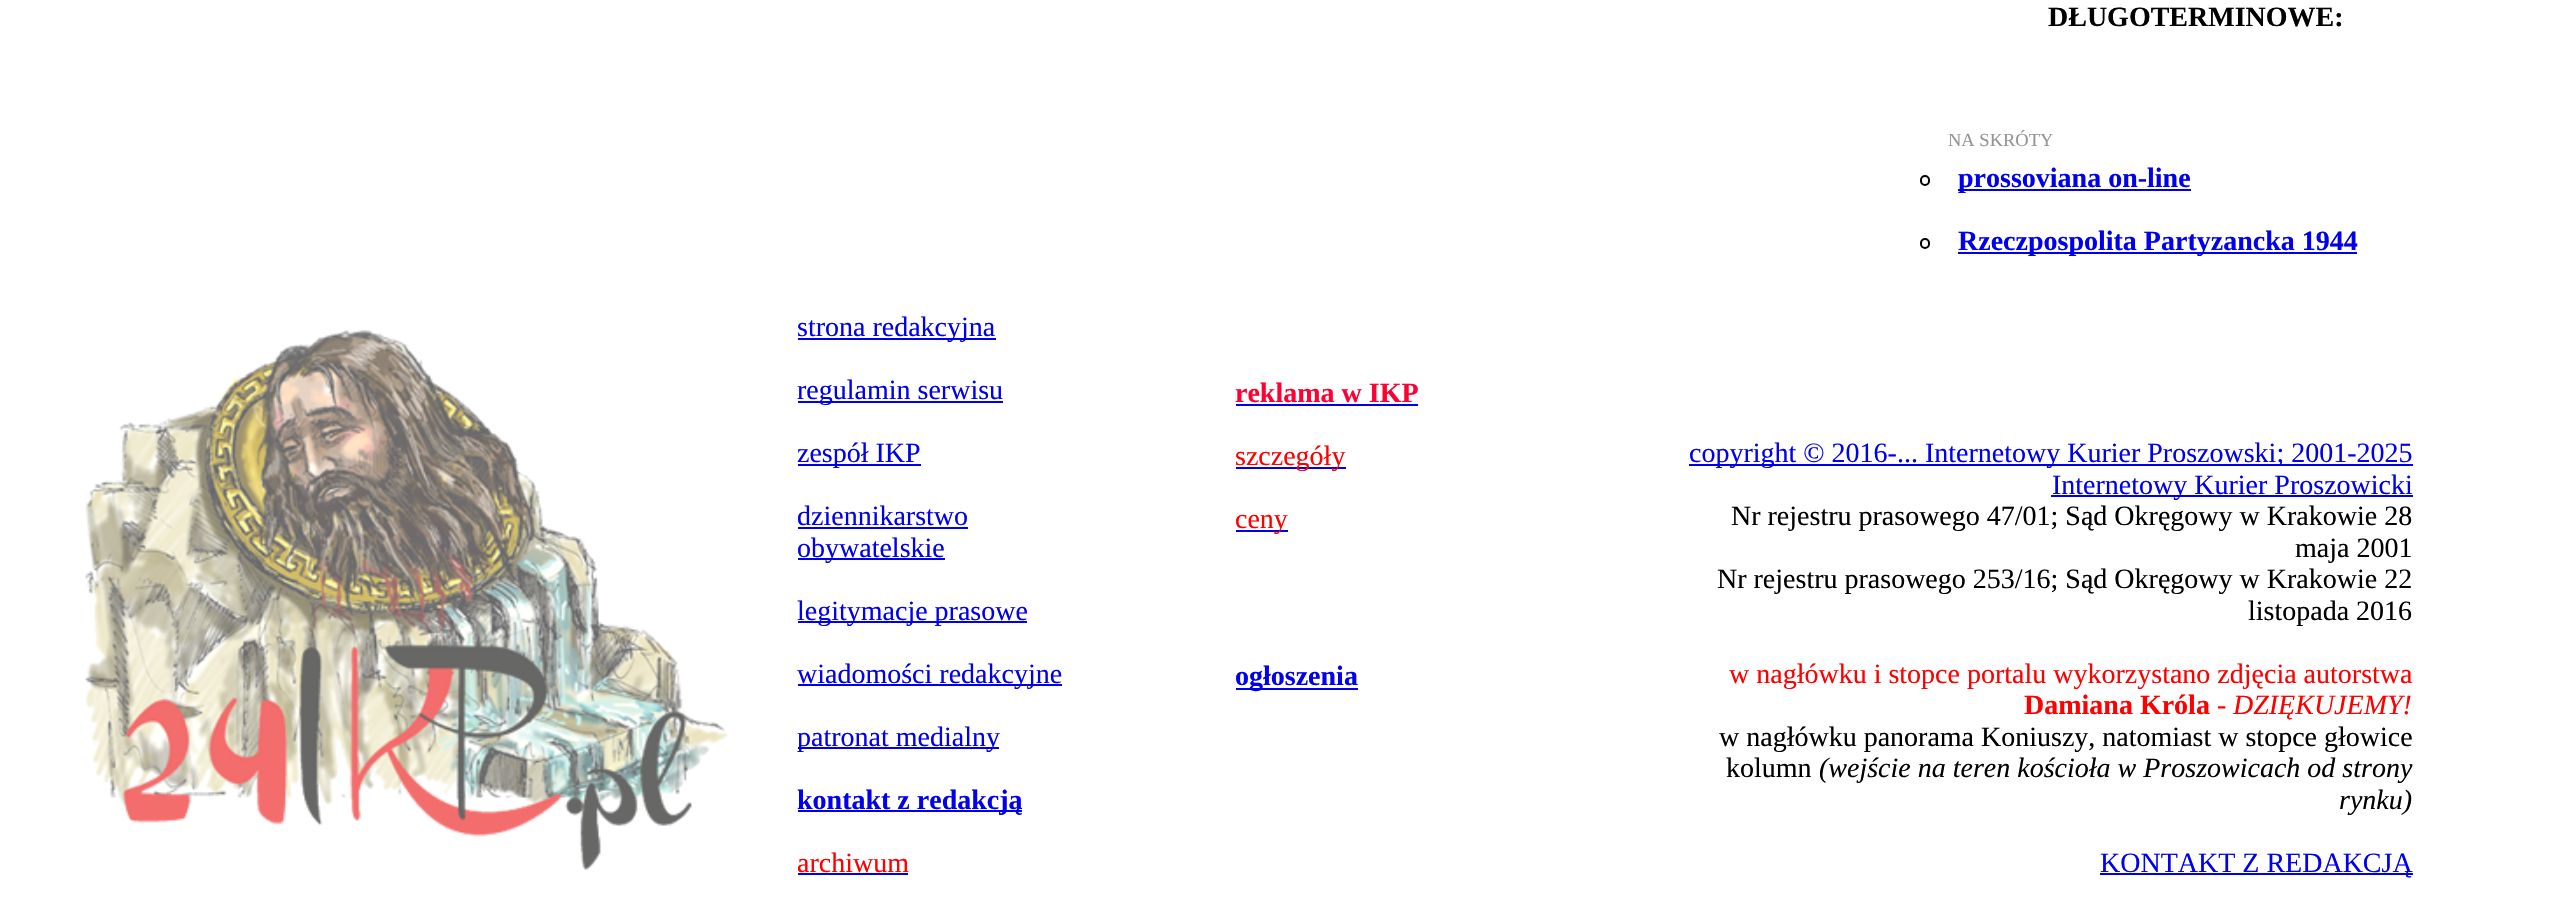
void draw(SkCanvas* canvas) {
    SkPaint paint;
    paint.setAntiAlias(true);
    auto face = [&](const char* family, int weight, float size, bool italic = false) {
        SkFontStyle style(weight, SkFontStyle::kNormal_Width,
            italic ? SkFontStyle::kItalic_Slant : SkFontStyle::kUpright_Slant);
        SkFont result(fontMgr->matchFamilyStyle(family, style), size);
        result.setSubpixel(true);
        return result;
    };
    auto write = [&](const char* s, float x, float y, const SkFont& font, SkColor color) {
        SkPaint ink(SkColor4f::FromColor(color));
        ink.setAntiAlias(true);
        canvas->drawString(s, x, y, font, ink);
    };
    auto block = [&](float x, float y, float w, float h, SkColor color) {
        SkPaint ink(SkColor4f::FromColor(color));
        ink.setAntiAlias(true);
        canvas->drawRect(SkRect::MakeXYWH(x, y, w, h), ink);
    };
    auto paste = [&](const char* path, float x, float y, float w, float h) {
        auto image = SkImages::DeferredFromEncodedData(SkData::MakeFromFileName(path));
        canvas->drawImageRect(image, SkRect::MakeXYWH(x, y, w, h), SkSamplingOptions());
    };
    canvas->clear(SK_ColorWHITE);
    auto kFont1 = face("Liberation Serif", 700, 28);
    write("DŁUGOTERMINOWE:", 2048, 26, kFont1, SK_ColorBLACK);
    auto kFont2 = face("Liberation Serif", 400, 18.5f);
    write("NA SKRÓTY", 1948, 146, kFont2, SkColorSetRGB(147, 147, 147));
    paint.setStyle(SkPaint::kStroke_Style);
    paint.setStrokeWidth(2);
    paint.setColor(SK_ColorBLACK);
    canvas->drawRoundRect(SkRect::MakeXYWH(1921, 176, 8, 9), 4, 4, paint);
    block(1958, 189, 233, 2, SkColorSetRGB(0, 0, 238));
    write("prossoviana on-line", 1958, 187, kFont1, SkColorSetRGB(0, 0, 238));
    canvas->drawRoundRect(SkRect::MakeXYWH(1921, 239, 8, 9), 4, 4, paint);
    block(1958, 252, 399, 2, SkColorSetRGB(0, 0, 238));
    write("Rzeczpospolita Partyzancka 1944", 1958, 250, kFont1, SkColorSetRGB(0, 0, 238));
    paste("pic1.png", 84, 330, 645, 540);
    block(798, 338, 198, 2, SkColorSetRGB(0, 0, 238));
    auto kFont3 = face("Liberation Serif", 400, 28);
    write("strona redakcyjna", 797, 336, kFont3, SkColorSetRGB(0, 0, 238));
    block(798, 401, 205, 2, SkColorSetRGB(0, 0, 238));
    write("regulamin serwisu", 797, 399, kFont3, SkColorSetRGB(0, 0, 238));
    block(798, 464, 123, 2, SkColorSetRGB(0, 0, 238));
    write("zespół IKP", 797, 462, kFont3, SkColorSetRGB(0, 0, 238));
    write("dziennikarstwo", 797, 525, kFont3, SkColorSetRGB(0, 0, 238));
    block(798, 527, 170, 2, SkColorSetRGB(0, 0, 238));
    block(798, 558, 147, 2, SkColorSetRGB(0, 0, 238));
    write("obywatelskie", 797, 557, kFont3, SkColorSetRGB(0, 0, 238));
    block(798, 621, 229, 2, SkColorSetRGB(0, 0, 238));
    write("legitymacje prasowe", 797, 620, kFont3, SkColorSetRGB(0, 0, 238));
    block(798, 684, 264, 2, SkColorSetRGB(0, 0, 238));
    write("wiadomości redakcyjne", 797, 683, kFont3, SkColorSetRGB(0, 0, 238));
    block(798, 747, 201, 2, SkColorSetRGB(0, 0, 238));
    write("patronat medialny", 797, 746, kFont3, SkColorSetRGB(0, 0, 238));
    block(798, 810, 224, 2, SkColorSetRGB(0, 0, 238));
    write("kontakt z redakcją", 797, 809, kFont1, SkColorSetRGB(0, 0, 238));
    write("archiwum", 797, 872, kFont3, SkColorSetRGB(255, 0, 0));
    block(798, 873, 110, 2, SkColorSetRGB(0, 0, 238));
    write("reklama w IKP", 1235, 402, kFont1, SkColorSetRGB(255, 0, 51));
    block(1236, 404, 182, 2, SkColorSetRGB(0, 0, 238));
    block(1236, 467, 110, 2, SkColorSetRGB(0, 0, 238));
    write("szczegóły", 1235, 465, kFont3, SkColorSetRGB(255, 0, 0));
    block(1236, 530, 52, 2, SkColorSetRGB(0, 0, 238));
    write("ceny", 1235, 528, kFont3, SkColorSetRGB(255, 0, 0));
    block(1236, 688, 122, 2, SkColorSetRGB(0, 0, 238));
    write("ogłoszenia", 1235, 685, kFont1, SkColorSetRGB(0, 0, 238));
    block(1689, 464, 724, 2, SkColorSetRGB(0, 0, 238));
    write("copyright © 2016-... Internetowy Kurier Proszowski; 2001-2025", 1689, 462, kFont3, SkColorSetRGB(0, 0, 238));
    block(2051, 495, 362, 2, SkColorSetRGB(0, 0, 238));
    write("Internetowy Kurier Proszowicki", 2052, 494, kFont3, SkColorSetRGB(0, 0, 238));
    write("Nr rejestru prasowego 47/01; Sąd Okręgowy w Krakowie 28", 1731, 525, kFont3, SK_ColorBLACK);
    write("maja 2001", 2295, 557, kFont3, SK_ColorBLACK);
    write("Nr rejestru prasowego 253/16; Sąd Okręgowy w Krakowie 22", 1717, 588, kFont3, SK_ColorBLACK);
    write("listopada 2016", 2248, 620, kFont3, SK_ColorBLACK);
    write("w nagłówku i stopce portalu wykorzystano zdjęcia autorstwa", 1729, 683, kFont3, SkColorSetRGB(255, 0, 0));
    write("Damiana Króla", 2024, 714, kFont1, SkColorSetRGB(255, 0, 0));
    write("-", 2217, 714, kFont3, SkColorSetRGB(255, 0, 0));
    auto kFont4 = face("Liberation Serif", 400, 28, true);
    write("DZIĘKUJEMY!", 2233, 714, kFont4, SkColorSetRGB(255, 0, 0));
    write("w nagłówku panorama Koniuszy, natomiast w stopce głowice", 1719, 746, kFont3, SK_ColorBLACK);
    write("kolumn", 1726, 777, kFont3, SK_ColorBLACK);
    write("(wejście na teren kościoła w Proszowicach od strony", 1819, 777, kFont4, SK_ColorBLACK);
    write("rynku)", 2339, 809, kFont4, SK_ColorBLACK);
    block(2100, 873, 313, 2, SkColorSetRGB(0, 0, 238));
    write("KONTAKT Z REDAKCJĄ", 2100, 872, kFont3, SkColorSetRGB(0, 0, 238));
}
